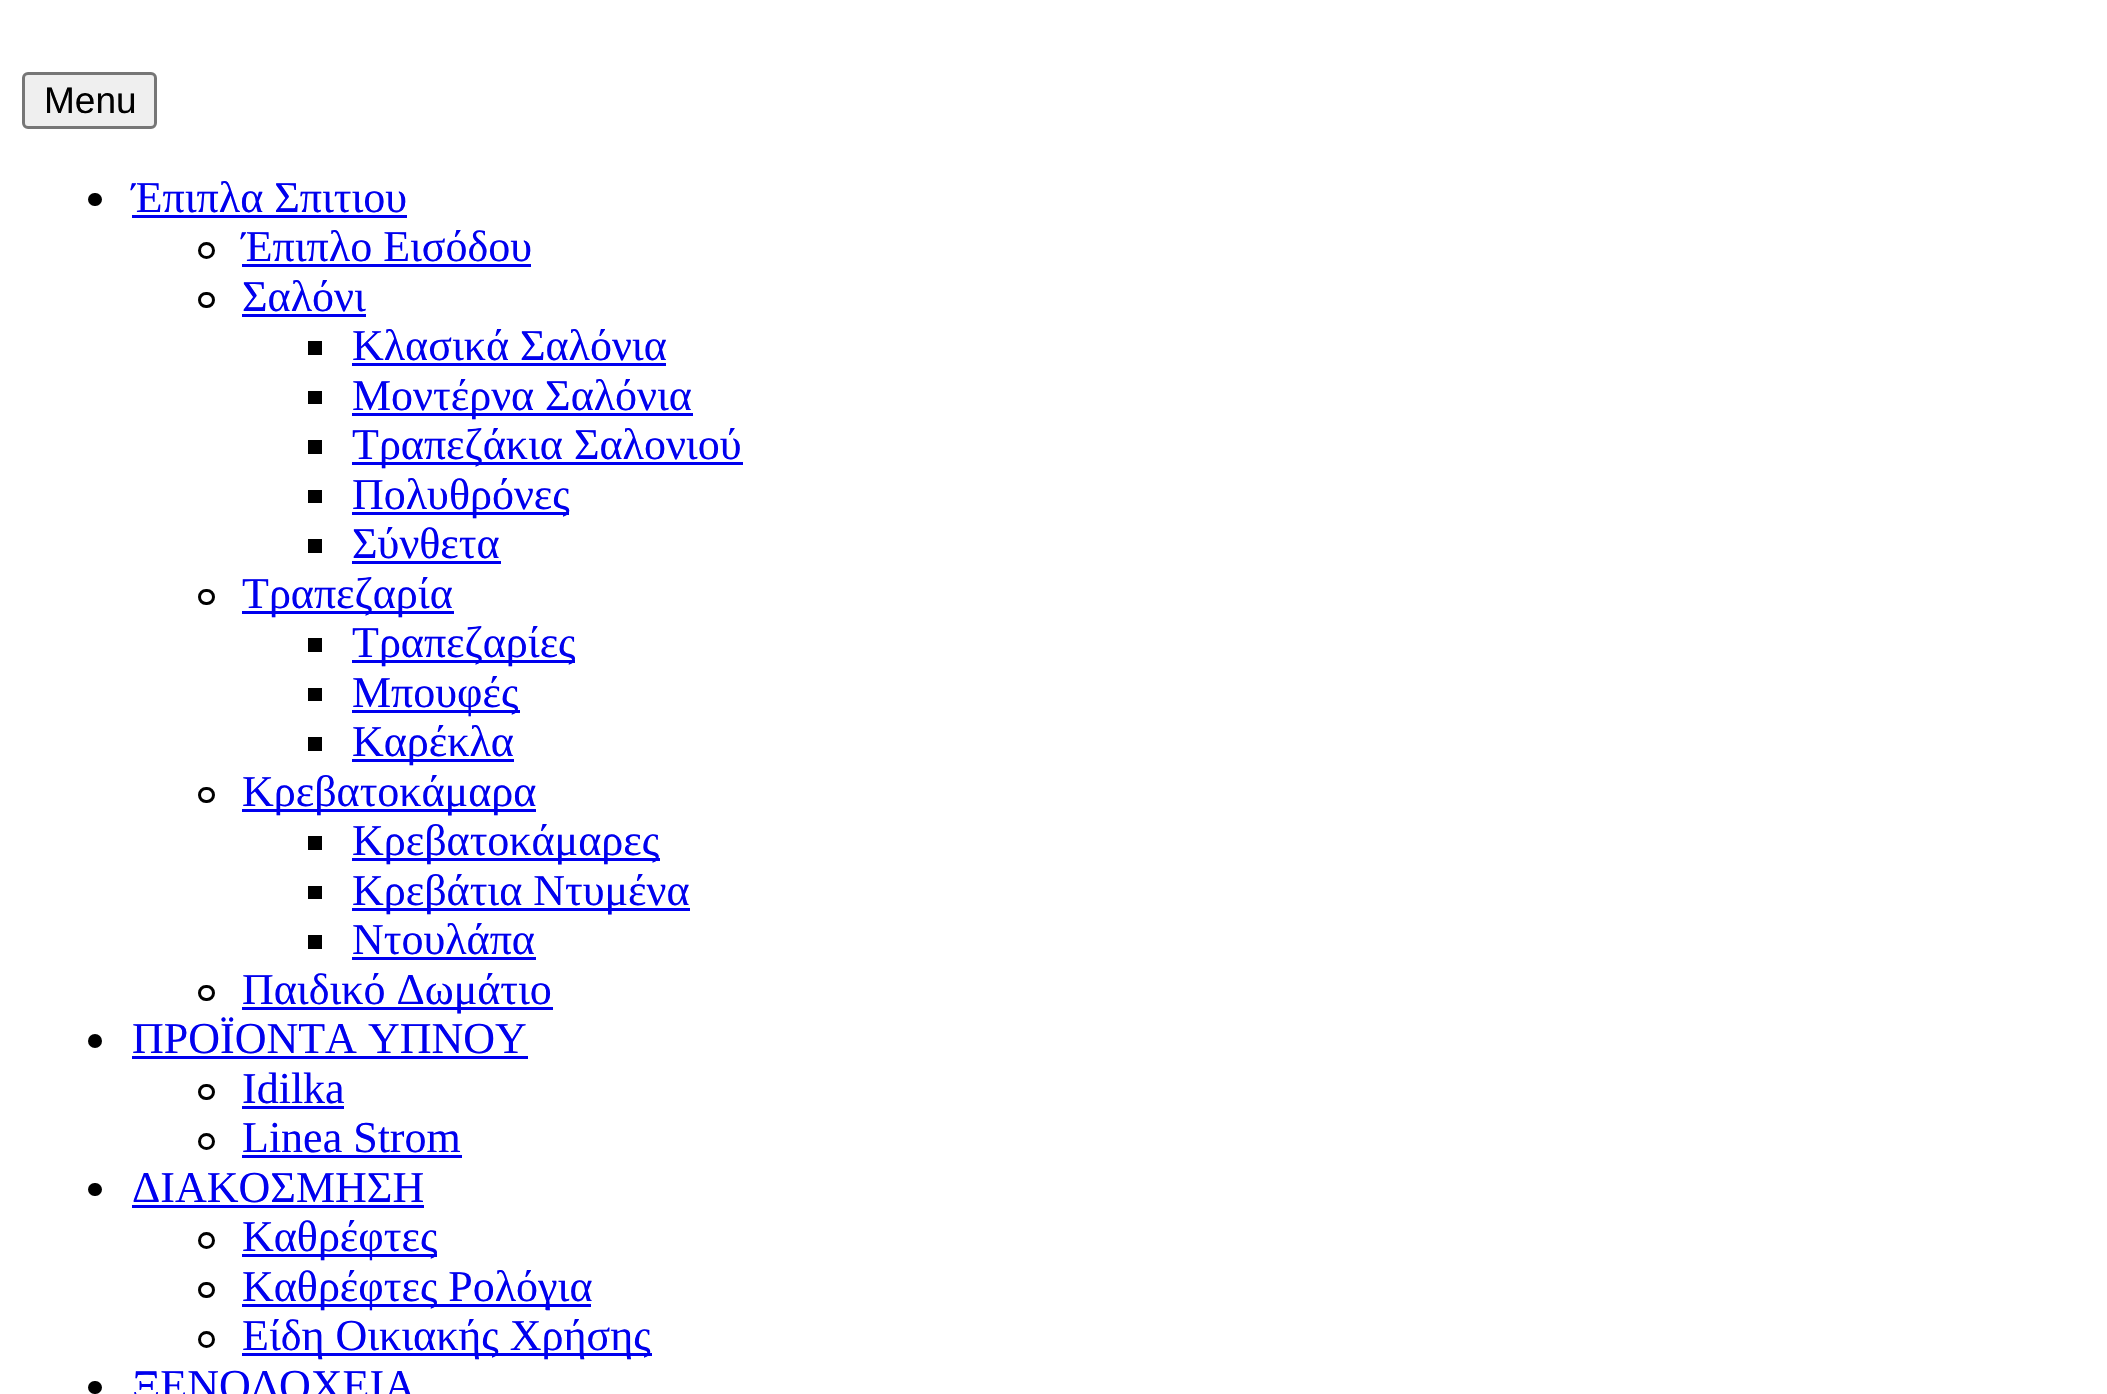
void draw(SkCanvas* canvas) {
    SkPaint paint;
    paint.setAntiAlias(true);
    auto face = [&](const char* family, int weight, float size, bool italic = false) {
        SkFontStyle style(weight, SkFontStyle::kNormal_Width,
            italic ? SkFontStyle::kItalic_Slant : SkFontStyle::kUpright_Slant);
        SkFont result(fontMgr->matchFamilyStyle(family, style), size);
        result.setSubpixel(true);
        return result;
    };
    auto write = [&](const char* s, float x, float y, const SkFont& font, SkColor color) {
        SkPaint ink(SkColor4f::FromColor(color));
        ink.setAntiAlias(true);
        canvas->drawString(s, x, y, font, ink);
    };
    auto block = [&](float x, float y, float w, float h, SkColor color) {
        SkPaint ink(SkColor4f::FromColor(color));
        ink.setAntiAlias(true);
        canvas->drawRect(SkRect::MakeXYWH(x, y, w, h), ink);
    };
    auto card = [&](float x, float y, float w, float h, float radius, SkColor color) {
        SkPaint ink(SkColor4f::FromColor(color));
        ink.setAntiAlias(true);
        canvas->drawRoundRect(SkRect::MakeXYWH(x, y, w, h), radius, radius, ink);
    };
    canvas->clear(SK_ColorWHITE);
    paint.setColor(SkColorSetRGB(239, 239, 239));
    canvas->drawRoundRect(SkRect::MakeXYWH(23.5f, 73.5f, 132, 54), 4.5f, 4.5f, paint);
    paint.setStyle(SkPaint::kStroke_Style);
    paint.setStrokeWidth(3);
    paint.setColor(SkColorSetRGB(118, 118, 118));
    canvas->drawRoundRect(SkRect::MakeXYWH(23.5f, 73.5f, 132, 54), 4.5f, 4.5f, paint);
    auto kFont1 = face("Liberation Sans", 400, 37);
    write("Menu", 44, 113, kFont1, SK_ColorBLACK);
    card(88, 193, 14, 13, 6.5f, SK_ColorBLACK);
    auto kFont2 = face("Liberation Serif", 400, 44);
    write("Έπιπλα Σπιτιου", 132, 212, kFont2, SkColorSetRGB(0, 0, 238));
    block(132, 215, 275, 3, SkColorSetRGB(0, 0, 238));
    paint.setColor(SK_ColorBLACK);
    canvas->drawCircle(206.5f, 250.5f, 7, paint);
    write("Έπιπλο Εισόδου", 242, 261, kFont2, SkColorSetRGB(0, 0, 238));
    block(242, 264, 289, 3, SkColorSetRGB(0, 0, 238));
    canvas->drawRoundRect(SkRect::MakeXYWH(199.5f, 293.5f, 14, 13), 6.5f, 6.5f, paint);
    write("Σαλόνι", 242, 311, kFont2, SkColorSetRGB(0, 0, 238));
    block(242, 314, 124, 3, SkColorSetRGB(0, 0, 238));
    block(308, 341, 14, 14, SK_ColorBLACK);
    write("Κλασικά Σαλόνια", 352, 360, kFont2, SkColorSetRGB(0, 0, 238));
    block(352, 363, 314, 3, SkColorSetRGB(0, 0, 238));
    block(308, 391, 14, 13, SK_ColorBLACK);
    block(352, 413, 341, 3, SkColorSetRGB(0, 0, 238));
    write("Μοντέρνα Σαλόνια", 352, 410, kFont2, SkColorSetRGB(0, 0, 238));
    block(308, 440, 14, 14, SK_ColorBLACK);
    block(352, 462, 391, 3, SkColorSetRGB(0, 0, 238));
    write("Τραπεζάκια Σαλονιού", 352, 459, kFont2, SkColorSetRGB(0, 0, 238));
    block(308, 490, 14, 13, SK_ColorBLACK);
    block(352, 512, 217, 3, SkColorSetRGB(0, 0, 238));
    write("Πολυθρόνες", 352, 509, kFont2, SkColorSetRGB(0, 0, 238));
    block(308, 539, 14, 14, SK_ColorBLACK);
    write("Σύνθετα", 352, 558, kFont2, SkColorSetRGB(0, 0, 238));
    block(352, 561, 149, 3, SkColorSetRGB(0, 0, 238));
    canvas->drawRoundRect(SkRect::MakeXYWH(199.5f, 590.5f, 14, 13), 6.5f, 6.5f, paint);
    block(242, 611, 212, 3, SkColorSetRGB(0, 0, 238));
    write("Τραπεζαρία", 242, 608, kFont2, SkColorSetRGB(0, 0, 238));
    block(308, 638, 14, 14, SK_ColorBLACK);
    block(352, 660, 223, 3, SkColorSetRGB(0, 0, 238));
    write("Τραπεζαρίες", 352, 657, kFont2, SkColorSetRGB(0, 0, 238));
    block(308, 688, 14, 13, SK_ColorBLACK);
    block(352, 710, 168, 3, SkColorSetRGB(0, 0, 238));
    write("Μπουφές", 352, 707, kFont2, SkColorSetRGB(0, 0, 238));
    block(308, 737, 14, 14, SK_ColorBLACK);
    block(352, 759, 162, 3, SkColorSetRGB(0, 0, 238));
    write("Καρέκλα", 352, 756, kFont2, SkColorSetRGB(0, 0, 238));
    canvas->drawRoundRect(SkRect::MakeXYWH(199.5f, 788.5f, 14, 13), 6.5f, 6.5f, paint);
    block(242, 809, 294, 3, SkColorSetRGB(0, 0, 238));
    write("Κρεβατοκάμαρα", 242, 806, kFont2, SkColorSetRGB(0, 0, 238));
    block(308, 836, 14, 14, SK_ColorBLACK);
    block(352, 858, 308, 3, SkColorSetRGB(0, 0, 238));
    write("Κρεβατοκάμαρες", 352, 855, kFont2, SkColorSetRGB(0, 0, 238));
    block(308, 886, 14, 13, SK_ColorBLACK);
    block(352, 908, 338, 3, SkColorSetRGB(0, 0, 238));
    write("Κρεβάτια Ντυμένα", 352, 905, kFont2, SkColorSetRGB(0, 0, 238));
    block(308, 935, 14, 14, SK_ColorBLACK);
    write("Ντουλάπα", 352, 954, kFont2, SkColorSetRGB(0, 0, 238));
    block(352, 957, 184, 3, SkColorSetRGB(0, 0, 238));
    canvas->drawRoundRect(SkRect::MakeXYWH(199.5f, 986.5f, 14, 13), 6.5f, 6.5f, paint);
    block(242, 1007, 311, 3, SkColorSetRGB(0, 0, 238));
    write("Παιδικό Δωμάτιο", 242, 1004, kFont2, SkColorSetRGB(0, 0, 238));
    paint.setStyle(SkPaint::kFill_Style);
    canvas->drawCircle(95, 1041, 7, paint);
    write("ΠΡΟΪΟΝΤΑ ΥΠΝΟΥ", 132, 1053, kFont2, SkColorSetRGB(0, 0, 238));
    block(132, 1056, 396, 3, SkColorSetRGB(0, 0, 238));
    paint.setStyle(SkPaint::kStroke_Style);
    canvas->drawRoundRect(SkRect::MakeXYWH(199.5f, 1085.5f, 14, 13), 6.5f, 6.5f, paint);
    write("Idilka", 242, 1103, kFont2, SkColorSetRGB(0, 0, 238));
    block(242, 1106, 102, 3, SkColorSetRGB(0, 0, 238));
    canvas->drawCircle(206.5f, 1141.5f, 7, paint);
    write("Linea Strom", 242, 1152, kFont2, SkColorSetRGB(0, 0, 238));
    block(242, 1155, 220, 3, SkColorSetRGB(0, 0, 238));
    card(88, 1183, 14, 13, 6.5f, SK_ColorBLACK);
    write("ΔΙΑΚΟΣΜΗΣΗ", 132, 1202, kFont2, SkColorSetRGB(0, 0, 238));
    block(132, 1205, 292, 3, SkColorSetRGB(0, 0, 238));
    canvas->drawCircle(206.5f, 1240.5f, 7, paint);
    block(242, 1254, 195, 3, SkColorSetRGB(0, 0, 238));
    write("Καθρέφτες", 242, 1251, kFont2, SkColorSetRGB(0, 0, 238));
    canvas->drawRoundRect(SkRect::MakeXYWH(199.5f, 1283.5f, 14, 13), 6.5f, 6.5f, paint);
    block(242, 1304, 349, 3, SkColorSetRGB(0, 0, 238));
    write("Καθρέφτες Ρολόγια", 242, 1301, kFont2, SkColorSetRGB(0, 0, 238));
    canvas->drawCircle(206.5f, 1339.5f, 7, paint);
    block(242, 1353, 410, 3, SkColorSetRGB(0, 0, 238));
    write("Είδη Οικιακής Χρήσης", 242, 1350, kFont2, SkColorSetRGB(0, 0, 238));
    card(88, 1381, 14, 13, 6.5f, SK_ColorBLACK);
    write("ΞΕΝΟΔΟΧΕΙΑ", 132, 1400, kFont2, SkColorSetRGB(0, 0, 238));
}
